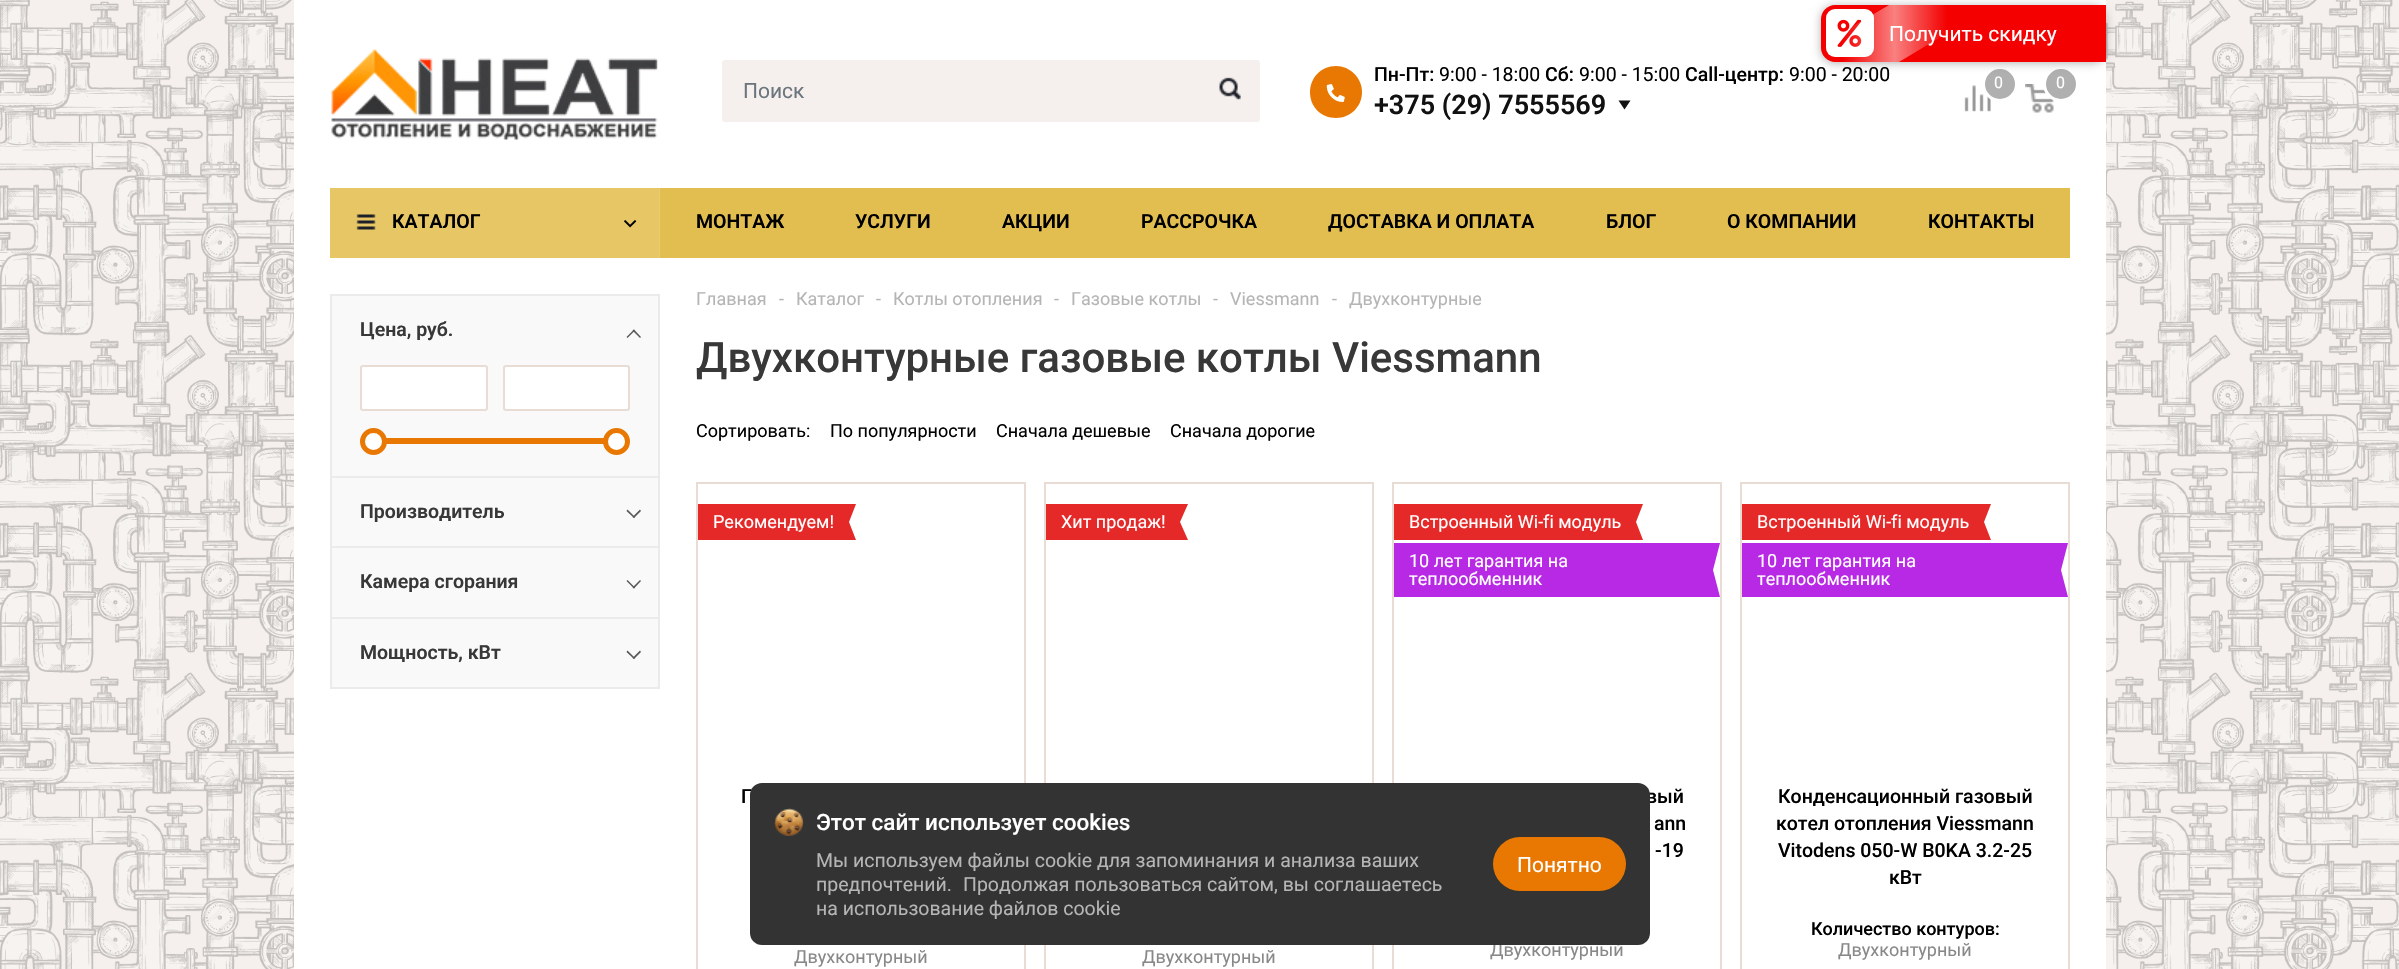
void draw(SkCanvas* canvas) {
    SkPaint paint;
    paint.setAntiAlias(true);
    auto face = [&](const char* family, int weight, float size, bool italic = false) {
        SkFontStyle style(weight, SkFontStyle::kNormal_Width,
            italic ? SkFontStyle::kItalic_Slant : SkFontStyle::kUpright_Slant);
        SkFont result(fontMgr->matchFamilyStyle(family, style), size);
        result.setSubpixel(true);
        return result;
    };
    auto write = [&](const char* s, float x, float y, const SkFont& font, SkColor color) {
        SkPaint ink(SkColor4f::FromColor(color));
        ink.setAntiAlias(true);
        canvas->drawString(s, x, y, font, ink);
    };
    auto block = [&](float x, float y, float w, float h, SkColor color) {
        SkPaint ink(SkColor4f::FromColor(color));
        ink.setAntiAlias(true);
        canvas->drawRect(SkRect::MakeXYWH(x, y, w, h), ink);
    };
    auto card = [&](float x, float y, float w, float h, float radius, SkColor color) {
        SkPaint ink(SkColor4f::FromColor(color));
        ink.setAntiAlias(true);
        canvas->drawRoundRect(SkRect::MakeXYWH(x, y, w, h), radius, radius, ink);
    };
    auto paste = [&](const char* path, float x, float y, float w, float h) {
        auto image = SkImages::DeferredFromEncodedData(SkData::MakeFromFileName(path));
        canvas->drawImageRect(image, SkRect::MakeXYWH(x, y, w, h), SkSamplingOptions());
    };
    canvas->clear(SkColorSetRGB(245, 240, 237));
    paste("pic1.png", 0, 0, 2399, 969);
    block(294, 0, 1812, 969, SK_ColorWHITE);
    paste("pic6.png", 1964, 85, 27, 27);
    paint.setColor(SkColorSetRGB(176, 176, 176));
    canvas->drawCircle(2000, 84, 16.5f, paint);
    paint.setStyle(SkPaint::kStroke_Style);
    paint.setStrokeWidth(3);
    paint.setColor(SK_ColorWHITE);
    canvas->drawCircle(2000, 84, 16.5f, paint);
    paste("pic7.png", 2025, 84, 29, 29);
    paint.setStyle(SkPaint::kFill_Style);
    paint.setColor(SkColorSetRGB(176, 176, 176));
    canvas->drawCircle(2061, 84, 16.5f, paint);
    paint.setStyle(SkPaint::kStroke_Style);
    paint.setColor(SK_ColorWHITE);
    canvas->drawCircle(2061, 84, 16.5f, paint);
    paint.setStyle(SkPaint::kFill_Style);
    paint.setColor(SkColorSetARGB(77, 0, 0, 0));
    paint.setMaskFilter(SkMaskFilter::MakeBlur(kNormal_SkBlurStyle, 5));
    canvas->drawRoundRect(SkRect::MakeXYWH(1821, 6, 285, 57), 14, 14, paint);
    paint.setMaskFilter(nullptr);
    paint.setColor(SkColorSetRGB(244, 0, 0));
    canvas->drawPath(SkPathBuilder().moveTo(1835, 5).lineTo(2106, 5).lineTo(2106, 62).lineTo(1835, 62).cubicTo(1827.5f, 62, 1821, 55.5f, 1821, 48).lineTo(1821, 19).cubicTo(1821, 11.5f, 1827.5f, 5, 1835, 5).close().detach(), paint);
    card(1826, 9, 48, 48, 9, SK_ColorWHITE);
    paste("pic2.png", 1837, 19, 25, 28);
    auto kFont1 = face("Roboto", 400, 21);
    write("Получить скидку", 1889, 41, kFont1, SK_ColorWHITE);
    {
        const SkColor colors[] = {SkColorSetARGB(0, 255, 255, 255), SkColorSetARGB(128, 255, 255, 255), SkColorSetARGB(0, 255, 255, 255)};
        const float stops[] = {0, 0.5f, 1};
        const SkPoint ends[] = {{1947, 33}, {1842, 33}};
        paint.setShader(SkGradientShader::MakeLinear(ends, colors, stops, 3, SkTileMode::kClamp));
        paint.setAlpha(255);
    }
    canvas->drawPath(SkPathBuilder().moveTo(1821, 45).lineTo(1889, 5).lineTo(1994, 5).lineTo(1899, 62).lineTo(1831, 62).cubicTo(1825, 60, 1821, 54, 1821, 48).close().detach(), paint);
    paste("pic3.png", 331, 49, 327, 91);
    paint.setShader(nullptr);
    paint.setColor(SkColorSetRGB(245, 240, 237));
    canvas->drawRoundRect(SkRect::MakeXYWH(723, 61, 536, 60), 2, 2, paint);
    paint.setStyle(SkPaint::kStroke_Style);
    paint.setStrokeWidth(2);
    canvas->drawRoundRect(SkRect::MakeXYWH(723, 61, 536, 60), 2, 2, paint);
    write("Поиск", 743, 98, kFont1, SkColorSetRGB(108, 117, 125));
    paste("pic4.png", 1219, 77, 22, 23);
    paint.setStyle(SkPaint::kFill_Style);
    paint.setColor(SkColorSetRGB(232, 120, 2));
    canvas->drawPath(SkPathBuilder().moveTo(1362, 92).cubicTo(1362, 107, 1350, 118, 1336, 118).cubicTo(1321, 118, 1310, 107, 1310, 92).cubicTo(1310, 78, 1321, 66, 1336, 66).cubicTo(1350, 66, 1362, 78, 1362, 92).close().detach(), paint);
    paste("pic5.png", 1326, 84, 19, 18);
    auto kFont2 = face("Roboto", 500, 19.5f);
    write("Пн-Пт:", 1374, 81, kFont2, SK_ColorBLACK);
    auto kFont3 = face("Roboto", 400, 19.5f);
    write("9:00 - 18:00", 1439, 81, kFont3, SK_ColorBLACK);
    write("Сб:", 1545, 81, kFont2, SK_ColorBLACK);
    write("9:00 - 15:00", 1579, 81, kFont3, SK_ColorBLACK);
    write("Сall-центр:", 1685, 81, kFont2, SK_ColorBLACK);
    write("9:00 - 20:00", 1789, 81, kFont3, SK_ColorBLACK);
    auto kFont4 = face("Roboto", 600, 27);
    write("+375 (29) 7555569", 1374, 114, kFont4, SkColorSetRGB(17, 17, 17));
    paint.setColor(SkColorSetRGB(17, 17, 17));
    canvas->drawPath(SkPathBuilder().moveTo(1618.5f, 100.5f).lineTo(1630.5f, 100.5f).lineTo(1624.5f, 109.5f).close().detach(), paint);
    auto kFont5 = face("Roboto", 400, 16);
    write("0", 1994, 88, kFont5, SK_ColorWHITE);
    write("0", 2056, 88, kFont5, SK_ColorWHITE);
    block(330, 188, 330, 70, SkColorSetRGB(231, 199, 101));
    block(659, 188, 1, 70, SkColorSetARGB(26, 255, 255, 255));
    paste("pic8.png", 356, 214, 20, 16);
    auto kFont6 = face("Roboto", 600, 19.5f);
    write("КАТАЛОГ", 392, 228, kFont6, SK_ColorBLACK);
    paste("pic9.png", 624, 220, 13, 8);
    block(660, 188, 1410, 70, SkColorSetRGB(226, 190, 80));
    write("МОНТАЖ", 696, 228, kFont6, SK_ColorBLACK);
    write("УСЛУГИ", 855, 228, kFont6, SK_ColorBLACK);
    write("АКЦИИ", 1002, 228, kFont6, SK_ColorBLACK);
    write("РАССРОЧКА", 1141, 228, kFont6, SK_ColorBLACK);
    write("ДОСТАВКА И ОПЛАТА", 1328, 228, kFont6, SK_ColorBLACK);
    write("БЛОГ", 1606, 228, kFont6, SK_ColorBLACK);
    write("О КОМПАНИИ", 1727, 228, kFont6, SK_ColorBLACK);
    write("КОНТАКТЫ", 1928, 228, kFont6, SK_ColorBLACK);
    paint.setColor(SkColorSetRGB(249, 249, 249));
    canvas->drawRect(SkRect::MakeXYWH(331, 295, 328, 393), paint);
    paint.setStyle(SkPaint::kStroke_Style);
    paint.setColor(SkColorSetRGB(235, 235, 235));
    canvas->drawRect(SkRect::MakeXYWH(331, 295, 328, 393), paint);
    block(332, 476, 327, 2, SkColorSetRGB(235, 235, 235));
    write("Цена, руб.", 360, 336, kFont6, SkColorSetRGB(56, 56, 56));
    paint.setStyle(SkPaint::kFill_Style);
    paint.setColor(SkColorSetRGB(88, 88, 88));
    canvas->drawPath(SkPathBuilder().moveTo(635, 330.5f).lineTo(627.5f, 338).lineTo(626.5f, 337).lineTo(634, 329.5f).close().detach(), paint);
    canvas->drawPath(SkPathBuilder().moveTo(641, 337).lineTo(640, 338).lineTo(632.5f, 330.5f).lineTo(634, 329.5f).close().detach(), paint);
    paint.setColor(SK_ColorWHITE);
    canvas->drawRoundRect(SkRect::MakeXYWH(361, 366, 126, 44), 2, 2, paint);
    paint.setStyle(SkPaint::kStroke_Style);
    paint.setColor(SkColorSetRGB(232, 220, 213));
    canvas->drawRoundRect(SkRect::MakeXYWH(361, 366, 126, 44), 2, 2, paint);
    paint.setStyle(SkPaint::kFill_Style);
    paint.setColor(SK_ColorWHITE);
    canvas->drawRoundRect(SkRect::MakeXYWH(504, 366, 125, 44), 2, 2, paint);
    paint.setStyle(SkPaint::kStroke_Style);
    paint.setColor(SkColorSetRGB(232, 220, 213));
    canvas->drawRoundRect(SkRect::MakeXYWH(504, 366, 125, 44), 2, 2, paint);
    block(386, 438, 218, 6, SkColorSetRGB(232, 120, 2));
    paint.setStyle(SkPaint::kFill_Style);
    paint.setColor(SK_ColorWHITE);
    canvas->drawCircle(373.5f, 441.5f, 11, paint);
    paint.setStyle(SkPaint::kStroke_Style);
    paint.setStrokeWidth(5);
    paint.setColor(SkColorSetRGB(232, 120, 2));
    canvas->drawCircle(373.5f, 441.5f, 11, paint);
    paint.setStyle(SkPaint::kFill_Style);
    paint.setColor(SK_ColorWHITE);
    canvas->drawCircle(616.5f, 441.5f, 11, paint);
    paint.setStyle(SkPaint::kStroke_Style);
    paint.setColor(SkColorSetRGB(232, 120, 2));
    canvas->drawCircle(616.5f, 441.5f, 11, paint);
    block(332, 546, 327, 2, SkColorSetRGB(235, 235, 235));
    write("Производитель", 360, 518, kFont6, SkColorSetRGB(56, 56, 56));
    paint.setStyle(SkPaint::kFill_Style);
    paint.setColor(SkColorSetRGB(88, 88, 88));
    canvas->drawPath(SkPathBuilder().moveTo(632.5f, 517).lineTo(640, 509.5f).lineTo(641, 511).lineTo(634, 518).close().detach(), paint);
    canvas->drawPath(SkPathBuilder().moveTo(626.5f, 511).lineTo(627.5f, 509.5f).lineTo(635, 517).lineTo(634, 518).close().detach(), paint);
    block(332, 617, 327, 2, SkColorSetRGB(235, 235, 235));
    write("Камера сгорания", 360, 588, kFont6, SkColorSetRGB(56, 56, 56));
    canvas->drawPath(SkPathBuilder().moveTo(632.5f, 587.5f).lineTo(640, 580).lineTo(641, 581).lineTo(634, 588.5f).close().detach(), paint);
    canvas->drawPath(SkPathBuilder().moveTo(626.5f, 581).lineTo(627.5f, 580).lineTo(635, 587.5f).lineTo(634, 588.5f).close().detach(), paint);
    write("Мощность, кВт", 360, 659, kFont6, SkColorSetRGB(56, 56, 56));
    canvas->drawPath(SkPathBuilder().moveTo(632.5f, 658).lineTo(640, 650.5f).lineTo(641, 652).lineTo(634, 659).close().detach(), paint);
    canvas->drawPath(SkPathBuilder().moveTo(626.5f, 652).lineTo(627.5f, 650.5f).lineTo(635, 658).lineTo(634, 659).close().detach(), paint);
    auto kFont7 = face("Roboto", 400, 18);
    write("Главная", 696, 305, kFont7, SkColorSetRGB(182, 181, 181));
    write("-", 779, 305, kFont7, SkColorSetRGB(182, 181, 181));
    write("Каталог", 796, 305, kFont7, SkColorSetRGB(182, 181, 181));
    write("-", 876, 305, kFont7, SkColorSetRGB(182, 181, 181));
    write("Котлы отопления", 893, 305, kFont7, SkColorSetRGB(182, 181, 181));
    write("-", 1054, 305, kFont7, SkColorSetRGB(182, 181, 181));
    write("Газовые котлы", 1071, 305, kFont7, SkColorSetRGB(182, 181, 181));
    write("-", 1213, 305, kFont7, SkColorSetRGB(182, 181, 181));
    write("Viessmann", 1230, 305, kFont7, SkColorSetRGB(182, 181, 181));
    write("-", 1332, 305, kFont7, SkColorSetRGB(182, 181, 181));
    write("Двухконтурные", 1349, 305, kFont7, SkColorSetRGB(182, 181, 181));
    auto kFont8 = face("Roboto", 500, 42);
    write("Двухконтурные газовые котлы Viessmann", 696, 372, kFont8, SkColorSetRGB(56, 56, 56));
    write("Сортировать:", 696, 437, kFont7, SK_ColorBLACK);
    write("По популярности", 830, 437, kFont7, SK_ColorBLACK);
    write("Сначала дешевые", 996, 437, kFont7, SK_ColorBLACK);
    write("Сначала дорогие", 1170, 437, kFont7, SK_ColorBLACK);
    paint.setStyle(SkPaint::kStroke_Style);
    paint.setStrokeWidth(2);
    paint.setColor(SkColorSetRGB(232, 220, 213));
    canvas->drawRect(SkRect::MakeXYWH(697, 483, 328, 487), paint);
    paint.setStyle(SkPaint::kFill_Style);
    paint.setColor(SkColorSetRGB(229, 41, 41));
    canvas->drawPath(SkPathBuilder().moveTo(698, 504).lineTo(698, 540).lineTo(856, 540).lineTo(849, 522).lineTo(856, 504).close().detach(), paint);
    write("Рекомендуем!", 713, 528, kFont7, SK_ColorWHITE);
    write("Г", 741, 803, kFont2, SK_ColorBLACK);
    write("Двухконтурный", 794, 963, kFont7, SkColorSetRGB(136, 136, 136));
    paint.setStyle(SkPaint::kStroke_Style);
    paint.setColor(SkColorSetRGB(232, 220, 213));
    canvas->drawRect(SkRect::MakeXYWH(1045, 483, 328, 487), paint);
    paint.setStyle(SkPaint::kFill_Style);
    paint.setColor(SkColorSetRGB(229, 41, 41));
    canvas->drawPath(SkPathBuilder().moveTo(1046, 504).lineTo(1046, 540).lineTo(1188, 540).lineTo(1180, 522).lineTo(1188, 504).close().detach(), paint);
    write("Хит продаж!", 1061, 528, kFont7, SK_ColorWHITE);
    write("Двухконтурный", 1142, 963, kFont7, SkColorSetRGB(136, 136, 136));
    paint.setStyle(SkPaint::kStroke_Style);
    paint.setColor(SkColorSetRGB(232, 220, 213));
    canvas->drawRect(SkRect::MakeXYWH(1393, 483, 328, 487), paint);
    paint.setStyle(SkPaint::kFill_Style);
    paint.setColor(SkColorSetRGB(229, 41, 41));
    canvas->drawPath(SkPathBuilder().moveTo(1394, 504).lineTo(1394, 540).lineTo(1643, 540).lineTo(1636, 522).lineTo(1643, 504).close().detach(), paint);
    write("Встроенный Wi-fi модуль", 1409, 528, kFont7, SK_ColorWHITE);
    paint.setColor(SkColorSetRGB(183, 41, 229));
    canvas->drawPath(SkPathBuilder().moveTo(1394, 543).lineTo(1394, 597).lineTo(1720, 597).lineTo(1713, 570).lineTo(1720, 543).close().detach(), paint);
    write("10 лет гарантия на", 1409, 567, kFont7, SK_ColorWHITE);
    write("теплообменник", 1409, 585, kFont7, SK_ColorWHITE);
    write("вый", 1646, 803, kFont2, SK_ColorBLACK);
    write("ann", 1654, 830, kFont2, SK_ColorBLACK);
    write("-19", 1655, 857, kFont2, SK_ColorBLACK);
    write("Двухконтурный", 1490, 956, kFont7, SkColorSetRGB(136, 136, 136));
    paint.setStyle(SkPaint::kStroke_Style);
    paint.setColor(SkColorSetRGB(232, 220, 213));
    canvas->drawRect(SkRect::MakeXYWH(1741, 483, 328, 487), paint);
    paint.setStyle(SkPaint::kFill_Style);
    paint.setColor(SkColorSetRGB(229, 41, 41));
    canvas->drawPath(SkPathBuilder().moveTo(1742, 504).lineTo(1742, 540).lineTo(1991, 540).lineTo(1984, 522).lineTo(1991, 504).close().detach(), paint);
    write("Встроенный Wi-fi модуль", 1757, 528, kFont7, SK_ColorWHITE);
    paint.setColor(SkColorSetRGB(183, 41, 229));
    canvas->drawPath(SkPathBuilder().moveTo(1742, 543).lineTo(1742, 597).lineTo(2068, 597).lineTo(2061, 570).lineTo(2068, 543).close().detach(), paint);
    write("10 лет гарантия на", 1757, 567, kFont7, SK_ColorWHITE);
    write("теплообменник", 1757, 585, kFont7, SK_ColorWHITE);
    write("Конденсационный газовый", 1778, 803, kFont2, SK_ColorBLACK);
    write("котел отопления Viessmann", 1776, 830, kFont2, SK_ColorBLACK);
    write("Vitodens 050-W B0KA 3.2-25", 1778, 857, kFont2, SK_ColorBLACK);
    write("кВт", 1889, 884, kFont2, SK_ColorBLACK);
    auto kFont9 = face("Roboto", 500, 18);
    write("Количество контуров:", 1811, 935, kFont9, SK_ColorBLACK);
    write("Двухконтурный", 1838, 956, kFont7, SkColorSetRGB(136, 136, 136));
    card(750, 783, 900, 162, 12, SkColorSetRGB(51, 51, 51));
    paste("pic10.png", 774, 808, 30, 28);
    auto kFont10 = face("Roboto", 500, 22.5f);
    write("Этот сайт использует cookies", 816, 830, kFont10, SK_ColorWHITE);
    write("Мы используем файлы cookie для запоминания и анализа ваших", 816, 867, kFont3, SkColorSetRGB(182, 181, 181));
    write("предпочтений.", 816, 891, kFont3, SkColorSetRGB(182, 181, 181));
    write("Продолжая пользоваться сайтом, вы соглашаетесь", 963, 891, kFont3, SkColorSetRGB(182, 181, 181));
    write("на использование файлов cookie", 816, 915, kFont3, SkColorSetRGB(182, 181, 181));
    card(1493, 837, 133, 54, 27, SkColorSetRGB(232, 120, 2));
    write("Понятно", 1517, 872, kFont1, SK_ColorWHITE);
}
